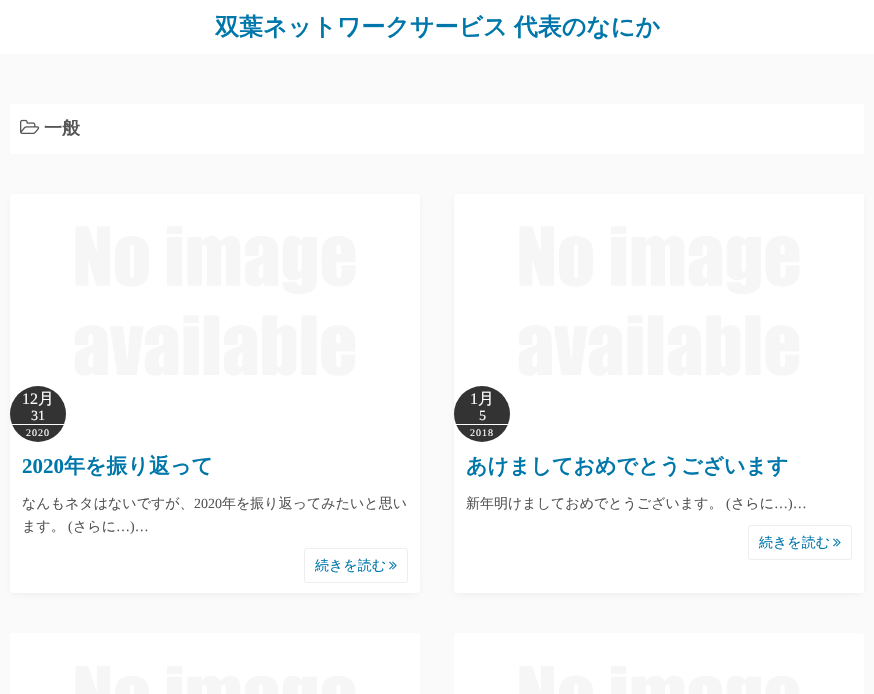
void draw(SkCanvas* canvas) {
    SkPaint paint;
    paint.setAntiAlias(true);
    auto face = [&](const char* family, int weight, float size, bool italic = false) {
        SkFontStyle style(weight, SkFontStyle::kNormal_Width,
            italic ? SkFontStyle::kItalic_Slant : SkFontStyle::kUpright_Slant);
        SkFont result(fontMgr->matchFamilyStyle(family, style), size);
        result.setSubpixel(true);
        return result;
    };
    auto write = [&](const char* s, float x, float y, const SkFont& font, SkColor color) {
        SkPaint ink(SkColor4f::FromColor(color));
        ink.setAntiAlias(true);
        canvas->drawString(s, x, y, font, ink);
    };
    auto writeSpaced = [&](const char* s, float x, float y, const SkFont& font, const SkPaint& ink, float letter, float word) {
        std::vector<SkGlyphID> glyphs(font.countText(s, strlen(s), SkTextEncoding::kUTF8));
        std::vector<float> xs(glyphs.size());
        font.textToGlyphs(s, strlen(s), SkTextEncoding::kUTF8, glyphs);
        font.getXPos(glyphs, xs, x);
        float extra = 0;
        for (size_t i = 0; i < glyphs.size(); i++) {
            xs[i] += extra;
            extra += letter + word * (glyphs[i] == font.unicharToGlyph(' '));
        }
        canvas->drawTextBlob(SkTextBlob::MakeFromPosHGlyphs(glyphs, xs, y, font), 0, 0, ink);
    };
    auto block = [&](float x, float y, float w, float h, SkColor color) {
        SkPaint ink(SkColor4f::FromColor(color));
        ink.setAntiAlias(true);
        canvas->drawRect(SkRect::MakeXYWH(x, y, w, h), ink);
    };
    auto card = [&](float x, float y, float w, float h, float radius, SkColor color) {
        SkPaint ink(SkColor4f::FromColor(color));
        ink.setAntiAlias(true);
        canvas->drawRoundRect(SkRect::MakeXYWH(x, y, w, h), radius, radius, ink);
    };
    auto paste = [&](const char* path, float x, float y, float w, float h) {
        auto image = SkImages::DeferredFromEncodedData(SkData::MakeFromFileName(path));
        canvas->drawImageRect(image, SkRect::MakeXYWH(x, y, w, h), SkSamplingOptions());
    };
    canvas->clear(SkColorSetRGB(250, 250, 250));
    block(0, 0, 874, 54, SK_ColorWHITE);
    auto kFont1 = face("WenQuanYi Zen Hei", 700, 24);
    paint.setColor(SkColorSetRGB(0, 119, 170));
    writeSpaced("双葉ネットワークサービス 代表のなにか", 215, 35, kFont1, paint, 0, -1);
    block(10, 104, 854, 50, SK_ColorWHITE);
    paste("pic1.png", 20, 119, 20, 15);
    auto kFont2 = face("WenQuanYi Zen Hei", 700, 18);
    write("一般", 44, 134, kFont2, SkColorSetRGB(85, 85, 85));
    paint.setColor(SkColorSetARGB(18, 10, 15, 17));
    paint.setMaskFilter(SkMaskFilter::MakeBlur(kNormal_SkBlurStyle, 4));
    canvas->drawRoundRect(SkRect::MakeXYWH(12, 198, 406, 395), 1, 1, paint);
    paint.setMaskFilter(nullptr);
    card(10, 194, 410, 399, 3, SK_ColorWHITE);
    paste("pic2.png", 74, 226, 282, 150);
    paint.setColor(SkColorSetRGB(51, 51, 51));
    canvas->drawCircle(38, 414, 28, paint);
    auto kFont3 = face("Liberation Serif", 400, 16);
    write("12", 22, 404, kFont3, SK_ColorWHITE);
    auto kFont4 = face("WenQuanYi Zen Hei", 500, 16);
    write("月", 38, 404, kFont4, SK_ColorWHITE);
    auto kFont5 = face("Liberation Serif", 400, 14);
    write("31", 31, 420, kFont5, SK_ColorWHITE);
    block(11, 424, 54, 1, SK_ColorWHITE);
    auto kFont6 = face("Liberation Serif", 400, 10);
    paint.setColor(SK_ColorWHITE);
    writeSpaced("2020", 26, 436, kFont6, paint, 1, 0);
    auto kFont7 = face("Liberation Serif", 700, 21);
    write("2020", 22, 473, kFont7, SkColorSetRGB(0, 119, 170));
    auto kFont8 = face("WenQuanYi Zen Hei", 700, 21);
    write("年を振り返って", 64, 473, kFont8, SkColorSetRGB(0, 119, 170));
    auto kFont9 = face("WenQuanYi Zen Hei", 500, 14);
    write("なんもネタはないですが、", 22, 508, kFont9, SkColorSetRGB(85, 85, 85));
    write("2020", 194, 508, kFont5, SkColorSetRGB(85, 85, 85));
    write("年を振り返ってみたいと思い", 222, 508, kFont9, SkColorSetRGB(85, 85, 85));
    write("ます。", 22, 531, kFont9, SkColorSetRGB(85, 85, 85));
    write("(", 68, 531, kFont5, SkColorSetRGB(85, 85, 85));
    write("さらに", 73, 531, kFont9, SkColorSetRGB(85, 85, 85));
    write("…)…", 116, 531, kFont5, SkColorSetRGB(85, 85, 85));
    paint.setStyle(SkPaint::kStroke_Style);
    paint.setStrokeWidth(1);
    paint.setColor(SkColorSetRGB(238, 238, 238));
    canvas->drawRoundRect(SkRect::MakeXYWH(304.5f, 548.5f, 103, 34), 2.5f, 2.5f, paint);
    write("続きを読む", 315, 570, kFont9, SkColorSetRGB(0, 119, 170));
    paste("pic3.png", 389, 561, 8, 9);
    paint.setStyle(SkPaint::kFill_Style);
    paint.setColor(SkColorSetARGB(18, 10, 15, 17));
    paint.setMaskFilter(SkMaskFilter::MakeBlur(kNormal_SkBlurStyle, 4));
    canvas->drawRoundRect(SkRect::MakeXYWH(456, 198, 406, 395), 1, 1, paint);
    paint.setMaskFilter(nullptr);
    card(454, 194, 410, 399, 3, SK_ColorWHITE);
    paste("pic4.png", 518, 226, 282, 150);
    paint.setColor(SkColorSetRGB(51, 51, 51));
    canvas->drawCircle(482, 414, 28, paint);
    write("1", 470, 404, kFont3, SK_ColorWHITE);
    write("月", 478, 404, kFont4, SK_ColorWHITE);
    write("5", 479, 420, kFont5, SK_ColorWHITE);
    block(455, 424, 54, 1, SK_ColorWHITE);
    paint.setColor(SK_ColorWHITE);
    writeSpaced("2018", 470, 436, kFont6, paint, 1, 0);
    write("あけましておめでとうございます", 466, 473, kFont8, SkColorSetRGB(0, 119, 170));
    write("新年明けましておめでとうございます。", 466, 508, kFont9, SkColorSetRGB(85, 85, 85));
    write("(", 726, 508, kFont5, SkColorSetRGB(85, 85, 85));
    write("さらに", 731, 508, kFont9, SkColorSetRGB(85, 85, 85));
    write("…)…", 774, 508, kFont5, SkColorSetRGB(85, 85, 85));
    paint.setStyle(SkPaint::kStroke_Style);
    paint.setColor(SkColorSetRGB(238, 238, 238));
    canvas->drawRoundRect(SkRect::MakeXYWH(748.5f, 525.5f, 103, 34), 2.5f, 2.5f, paint);
    write("続きを読む", 759, 547, kFont9, SkColorSetRGB(0, 119, 170));
    paste("pic3.png", 833, 538, 8, 9);
    card(10, 633, 410, 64, 3, SK_ColorWHITE);
    paste("pic5.png", 75, 666, 281, 28);
    card(454, 633, 410, 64, 3, SK_ColorWHITE);
    paste("pic6.png", 519, 666, 281, 28);
}
